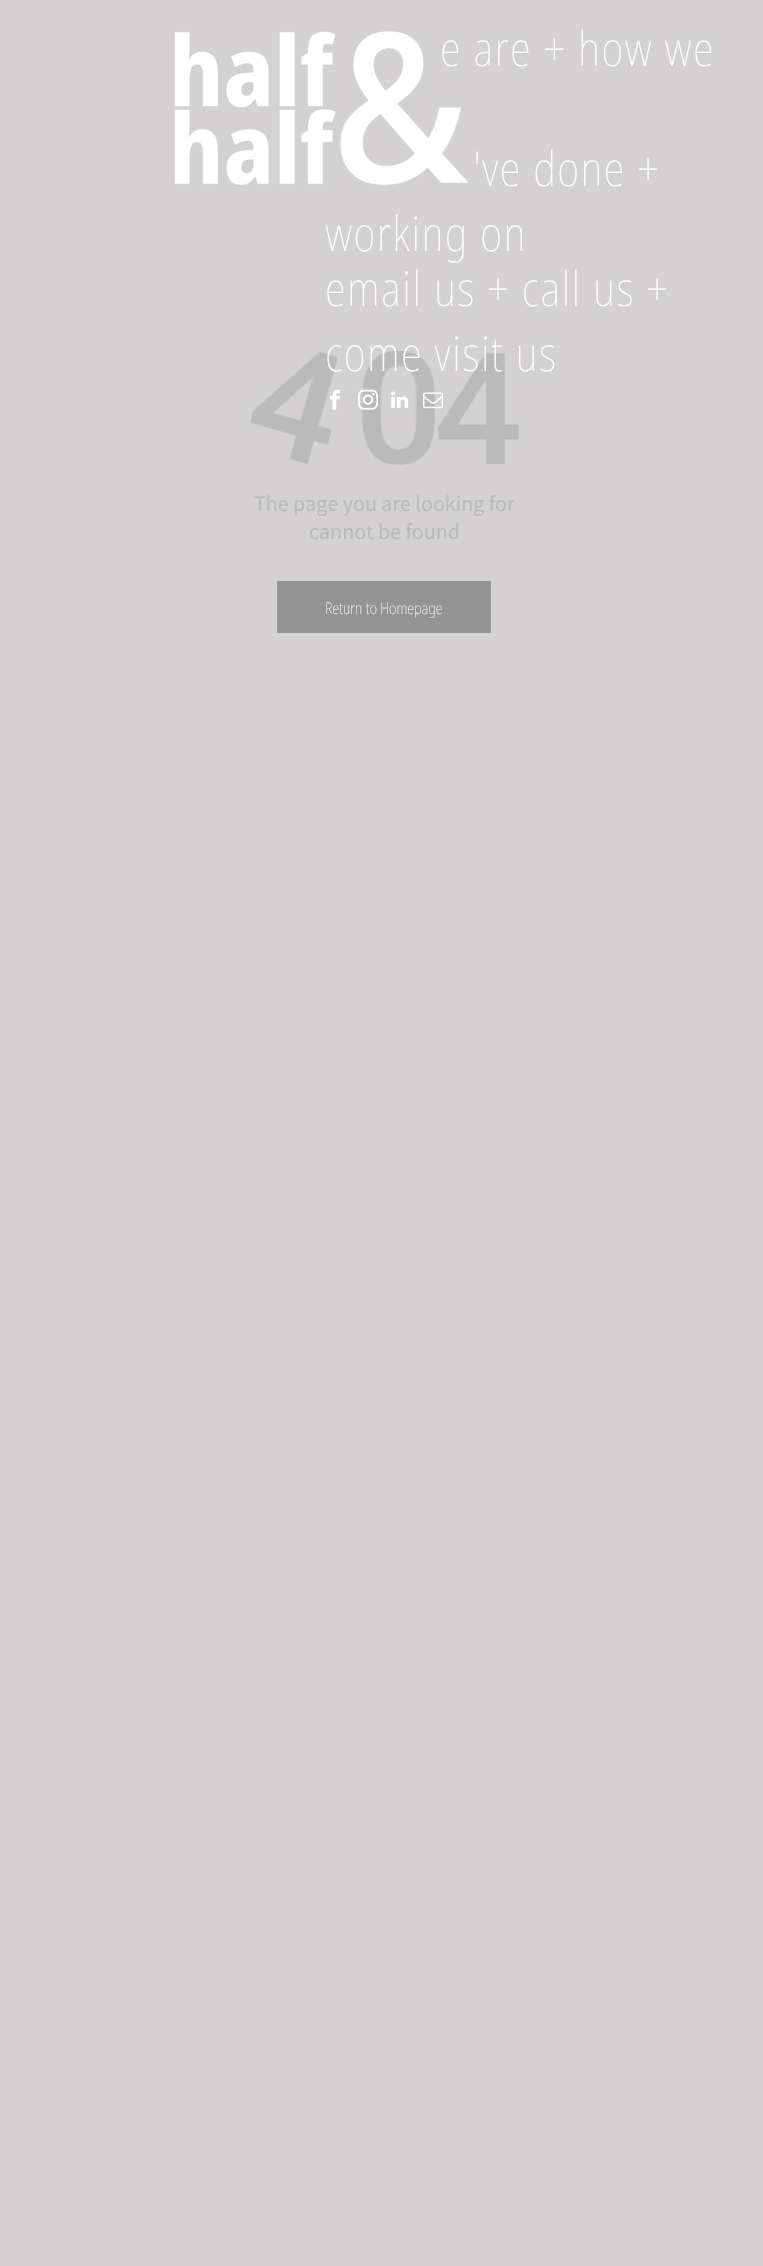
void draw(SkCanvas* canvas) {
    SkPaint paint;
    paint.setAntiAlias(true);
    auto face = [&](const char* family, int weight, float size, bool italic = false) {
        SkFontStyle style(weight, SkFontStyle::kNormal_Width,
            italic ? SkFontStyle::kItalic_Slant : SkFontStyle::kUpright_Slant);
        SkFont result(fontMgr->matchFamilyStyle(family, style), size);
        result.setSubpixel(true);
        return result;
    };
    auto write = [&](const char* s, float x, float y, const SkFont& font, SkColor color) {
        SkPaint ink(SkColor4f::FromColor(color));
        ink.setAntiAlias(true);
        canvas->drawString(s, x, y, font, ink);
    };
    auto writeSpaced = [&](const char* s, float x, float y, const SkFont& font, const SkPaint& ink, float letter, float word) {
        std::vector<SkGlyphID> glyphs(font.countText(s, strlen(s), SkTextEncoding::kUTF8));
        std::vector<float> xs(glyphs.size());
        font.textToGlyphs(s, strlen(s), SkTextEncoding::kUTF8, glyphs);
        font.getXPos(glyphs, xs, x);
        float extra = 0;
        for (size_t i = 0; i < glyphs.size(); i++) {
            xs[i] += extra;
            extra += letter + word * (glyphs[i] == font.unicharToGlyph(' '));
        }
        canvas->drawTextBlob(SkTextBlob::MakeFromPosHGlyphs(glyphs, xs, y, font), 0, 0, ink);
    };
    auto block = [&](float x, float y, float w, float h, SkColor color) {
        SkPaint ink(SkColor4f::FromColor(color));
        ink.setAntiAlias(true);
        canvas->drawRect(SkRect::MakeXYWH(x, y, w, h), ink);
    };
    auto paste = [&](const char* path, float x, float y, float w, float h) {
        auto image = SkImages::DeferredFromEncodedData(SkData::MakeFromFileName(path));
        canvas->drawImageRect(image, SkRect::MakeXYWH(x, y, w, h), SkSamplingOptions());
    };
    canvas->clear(SkColorSetRGB(211, 209, 209));
    paste("pic1.png", 174, 31, 295, 154);
    auto kFont1 = face("Noto Sans", 100, 48);
    paint.setColor(SK_ColorWHITE);
    writeSpaced("e are + how we", 440, 66, kFont1, paint, 1.4f, 0);
    writeSpaced("'ve done +", 473, 186, kFont1, paint, 1.4f, 0);
    writeSpaced("working on", 325, 251, kFont1, paint, 1.4f, 0);
    writeSpaced("email us + call us +", 325, 306, kFont1, paint, 1.4f, 0);
    paste("pic6.png", 250, 351, 269, 114);
    writeSpaced("come visit us", 325, 371, kFont1, paint, 1.4f, 0);
    paste("pic2.png", 330, 389, 10, 21);
    paste("pic3.png", 358, 389, 20, 21);
    paste("pic4.png", 391, 391, 18, 17);
    paste("pic5.png", 423, 392, 20, 17);
    auto kFont2 = face("Source Sans Pro", 400, 22);
    write("The page you are looking for", 254, 511, kFont2, SkColorSetRGB(186, 186, 186));
    write("cannot be found", 309, 539, kFont2, SkColorSetRGB(186, 186, 186));
    block(277, 581, 214, 52, SkColorSetRGB(147, 147, 147));
    auto kFont3 = face("Noto Sans", 100, 16);
    write("Return to Homepage", 325, 614, kFont3, SK_ColorWHITE);
}
